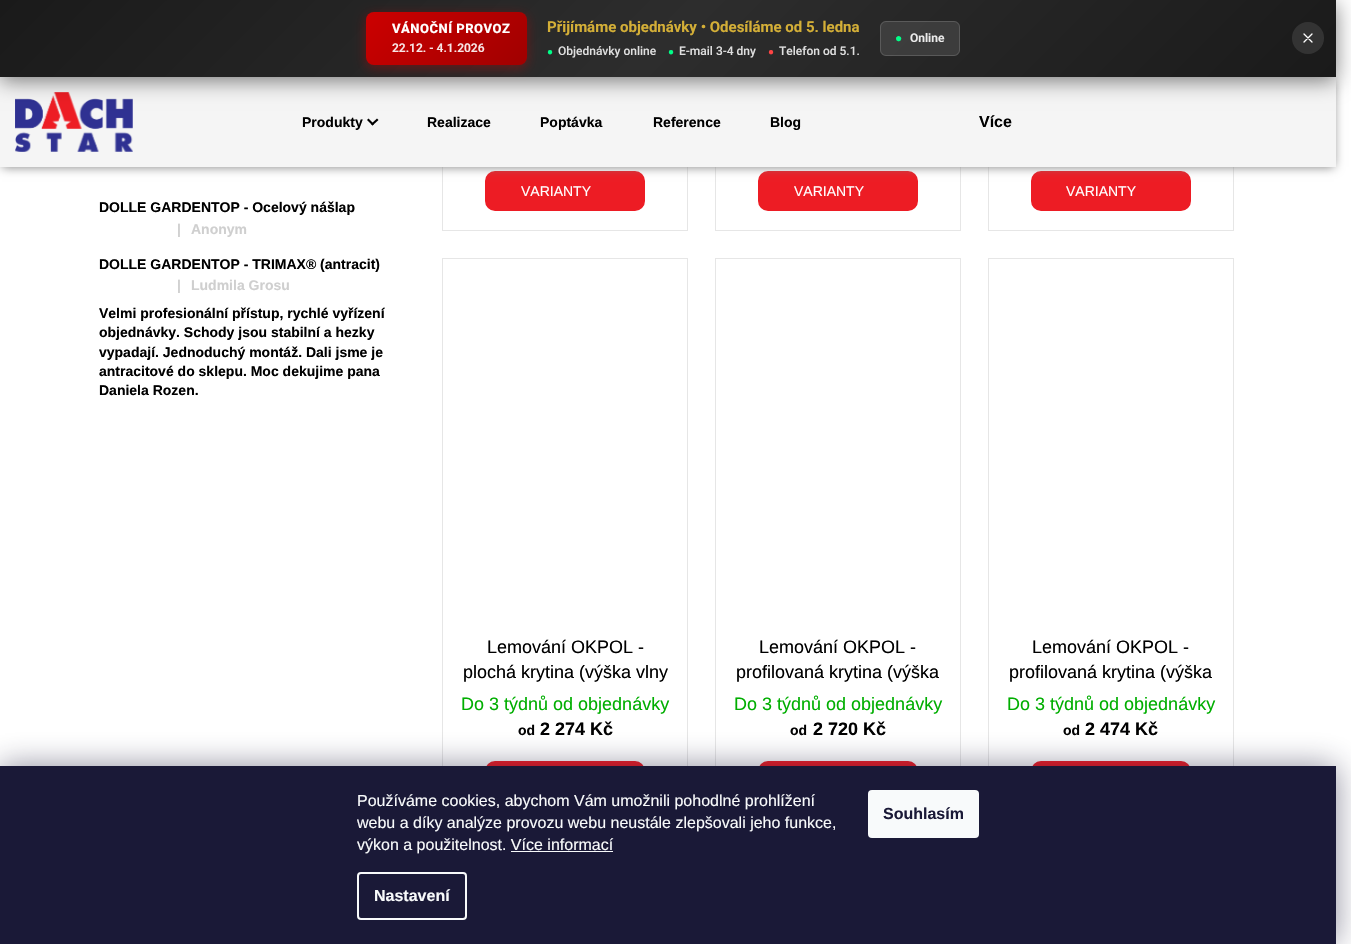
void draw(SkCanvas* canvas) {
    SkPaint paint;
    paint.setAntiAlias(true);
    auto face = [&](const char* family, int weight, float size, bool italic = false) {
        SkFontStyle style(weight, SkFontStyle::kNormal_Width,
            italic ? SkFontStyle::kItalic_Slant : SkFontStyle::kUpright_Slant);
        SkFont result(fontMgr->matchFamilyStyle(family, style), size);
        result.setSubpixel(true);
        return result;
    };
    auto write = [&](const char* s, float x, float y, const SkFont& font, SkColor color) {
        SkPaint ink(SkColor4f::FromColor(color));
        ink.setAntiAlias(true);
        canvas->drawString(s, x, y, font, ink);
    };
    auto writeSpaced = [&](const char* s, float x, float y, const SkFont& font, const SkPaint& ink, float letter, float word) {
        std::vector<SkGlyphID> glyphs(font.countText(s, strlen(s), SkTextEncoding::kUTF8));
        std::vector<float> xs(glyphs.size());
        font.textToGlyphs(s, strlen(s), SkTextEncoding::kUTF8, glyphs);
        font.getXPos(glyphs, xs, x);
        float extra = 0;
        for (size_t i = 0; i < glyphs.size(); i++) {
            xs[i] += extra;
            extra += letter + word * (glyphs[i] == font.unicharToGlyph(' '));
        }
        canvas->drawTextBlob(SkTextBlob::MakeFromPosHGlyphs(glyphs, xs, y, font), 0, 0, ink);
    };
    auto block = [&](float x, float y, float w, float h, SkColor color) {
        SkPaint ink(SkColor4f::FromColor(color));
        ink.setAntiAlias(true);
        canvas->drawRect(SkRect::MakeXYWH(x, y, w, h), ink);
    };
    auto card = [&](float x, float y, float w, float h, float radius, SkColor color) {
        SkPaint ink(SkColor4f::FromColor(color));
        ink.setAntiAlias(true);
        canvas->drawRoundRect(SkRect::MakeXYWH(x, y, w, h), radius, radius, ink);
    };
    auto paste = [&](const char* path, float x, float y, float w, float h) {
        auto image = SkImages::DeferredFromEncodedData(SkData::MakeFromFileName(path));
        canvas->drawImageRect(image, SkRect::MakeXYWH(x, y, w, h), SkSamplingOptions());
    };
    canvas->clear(SK_ColorWHITE);
    paint.setStyle(SkPaint::kStroke_Style);
    paint.setStrokeWidth(1);
    paint.setColor(SkColorSetRGB(230, 230, 230));
    canvas->drawRect(SkRect::MakeXYWH(442.5f, -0.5f, 245, 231), paint);
    paint.setStyle(SkPaint::kFill_Style);
    paint.setColor(SkColorSetRGB(237, 28, 36));
    canvas->drawRoundRect(SkRect::MakeXYWH(486, 172, 158, 38), 9, 9, paint);
    paint.setStyle(SkPaint::kStroke_Style);
    paint.setStrokeWidth(2);
    canvas->drawRoundRect(SkRect::MakeXYWH(486, 172, 158, 38), 9, 9, paint);
    paint.setStrokeWidth(1);
    paint.setColor(SkColorSetRGB(230, 230, 230));
    canvas->drawRect(SkRect::MakeXYWH(715.5f, -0.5f, 245, 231), paint);
    paint.setStyle(SkPaint::kFill_Style);
    paint.setColor(SkColorSetRGB(237, 28, 36));
    canvas->drawRoundRect(SkRect::MakeXYWH(759, 172, 158, 38), 9, 9, paint);
    paint.setStyle(SkPaint::kStroke_Style);
    paint.setStrokeWidth(2);
    canvas->drawRoundRect(SkRect::MakeXYWH(759, 172, 158, 38), 9, 9, paint);
    paint.setStrokeWidth(1);
    paint.setColor(SkColorSetRGB(230, 230, 230));
    canvas->drawRect(SkRect::MakeXYWH(988.5f, -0.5f, 245, 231), paint);
    paint.setStyle(SkPaint::kFill_Style);
    paint.setColor(SkColorSetRGB(237, 28, 36));
    canvas->drawRoundRect(SkRect::MakeXYWH(1032, 172, 158, 38), 9, 9, paint);
    paint.setStyle(SkPaint::kStroke_Style);
    paint.setStrokeWidth(2);
    canvas->drawRoundRect(SkRect::MakeXYWH(1032, 172, 158, 38), 9, 9, paint);
    paint.setStyle(SkPaint::kFill_Style);
    paint.setColor(SkColorSetRGB(128, 128, 128));
    paint.setMaskFilter(SkMaskFilter::MakeBlur(kNormal_SkBlurStyle, 5));
    canvas->drawRect(SkRect::MakeXYWH(2, 81, 1332, 86), paint);
    paint.setMaskFilter(nullptr);
    block(0, 77, 1336, 90, SkColorSetRGB(245, 245, 245));
    paste("pic1.png", 15, 92, 118, 60);
    paint.setColor(SkColorSetARGB(128, 0, 0, 0));
    paint.setMaskFilter(SkMaskFilter::MakeBlur(kNormal_SkBlurStyle, 10));
    canvas->drawRect(SkRect::MakeXYWH(0, 4, 1336, 77), paint);
    paint.setMaskFilter(nullptr);
    {
        const SkColor colors[] = {SkColorSetRGB(26, 26, 26), SkColorSetRGB(45, 45, 45), SkColorSetRGB(26, 26, 26)};
        const float stops[] = {0, 0.5f, 1};
        const SkPoint ends[] = {{315, -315}, {1021, 392}};
        paint.setShader(SkGradientShader::MakeLinear(ends, colors, stops, 3, SkTileMode::kClamp));
        paint.setAlpha(255);
    }
    canvas->drawRect(SkRect::MakeXYWH(0, 0, 1336, 77), paint);
    paint.setShader(nullptr);
    paint.setColor(SkColorSetARGB(102, 204, 0, 0));
    paint.setMaskFilter(SkMaskFilter::MakeBlur(kNormal_SkBlurStyle, 6));
    canvas->drawRoundRect(SkRect::MakeXYWH(366, 15, 161, 53), 8, 8, paint);
    paint.setMaskFilter(nullptr);
    {
        const SkColor colors[] = {SkColorSetRGB(204, 0, 0), SkColorSetRGB(160, 0, 0)};
        const float stops[] = {0, 1};
        const SkPoint ends[] = {{393, -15}, {500, 92}};
        paint.setShader(SkGradientShader::MakeLinear(ends, colors, stops, 2, SkTileMode::kClamp));
        paint.setAlpha(255);
    }
    canvas->drawRoundRect(SkRect::MakeXYWH(366, 12, 161, 53), 8, 8, paint);
    auto kFont1 = face("Roboto", 800, 13);
    paint.setShader(nullptr);
    paint.setColor(SK_ColorWHITE);
    writeSpaced("VÁNOČNÍ PROVOZ", 392, 33, kFont1, paint, 0.5f, 0);
    auto kFont2 = face("Roboto", 600, 12);
    write("22.12. - 4.1.2026", 392, 52, kFont2, SkColorSetRGB(248, 230, 230));
    auto kFont3 = face("Roboto", 700, 15);
    write("Přijímáme objednávky • Odesíláme od 5. ledna", 547, 32, kFont3, SkColorSetRGB(212, 175, 55));
    auto kFont4 = face("Liberation Sans", 400, 10);
    write("●", 547, 55, kFont4, SkColorSetRGB(0, 255, 136));
    auto kFont5 = face("Roboto", 500, 12);
    write("Objednávky online", 558, 55, kFont5, SkColorSetRGB(223, 223, 223));
    write("●", 668, 55, kFont4, SkColorSetRGB(0, 255, 136));
    write("E-mail 3-4 dny", 679, 55, kFont5, SkColorSetRGB(223, 223, 223));
    write("●", 768, 55, kFont4, SkColorSetRGB(255, 68, 68));
    write("Telefon od 5.1.", 779, 55, kFont5, SkColorSetRGB(223, 223, 223));
    card(880, 21, 80, 35, 6, SkColorSetARGB(26, 255, 255, 255));
    paint.setStyle(SkPaint::kStroke_Style);
    paint.setStrokeWidth(1);
    paint.setColor(SkColorSetARGB(38, 255, 255, 255));
    canvas->drawRoundRect(SkRect::MakeXYWH(880.5f, 21.5f, 79, 34), 5.5f, 5.5f, paint);
    auto kFont6 = face("Liberation Sans", 400, 12);
    write("●", 895, 42, kFont6, SkColorSetRGB(0, 255, 136));
    write("Online", 910, 42, kFont2, SkColorSetRGB(235, 235, 235));
    paint.setStyle(SkPaint::kFill_Style);
    paint.setColor(SkColorSetRGB(51, 51, 51));
    canvas->drawCircle(1308, 38, 16, paint);
    paint.setStyle(SkPaint::kStroke_Style);
    paint.setStrokeWidth(1.3f);
    paint.setStrokeCap(SkPaint::kRound_Cap);
    paint.setStrokeJoin(SkPaint::kRound_Join);
    paint.setColor(SK_ColorWHITE);
    canvas->drawPath(SkPathBuilder().moveTo(1312, 34).lineTo(1304, 42).moveTo(1304, 34).lineTo(1312, 42).detach(), paint);
    auto kFont7 = face("Liberation Sans", 700, 14);
    write("Produkty", 302, 127, kFont7, SK_ColorBLACK);
    paint.setStyle(SkPaint::kFill_Style);
    paint.setColor(SK_ColorBLACK);
    canvas->drawPath(SkPathBuilder().moveTo(377, 118.5f).lineTo(378.5f, 120).lineTo(372.5f, 125.5f).lineTo(371, 124).close().detach(), paint);
    canvas->drawPath(SkPathBuilder().moveTo(368.5f, 118.5f).lineTo(374, 124).lineTo(372.5f, 125.5f).lineTo(367, 120).close().detach(), paint);
    write("Realizace", 427, 127, kFont7, SK_ColorBLACK);
    write("Poptávka", 540, 127, kFont7, SK_ColorBLACK);
    write("Reference", 653, 127, kFont7, SK_ColorBLACK);
    write("Blog", 770, 127, kFont7, SK_ColorBLACK);
    auto kFont8 = face("Liberation Sans", 700, 16);
    write("Více", 979, 127, kFont8, SK_ColorBLACK);
    write("DOLLE GARDENTOP - Ocelový nášlap", 99, 212, kFont7, SK_ColorBLACK);
    write("|", 177, 234, kFont7, SkColorSetRGB(207, 207, 207));
    write("Anonym", 191, 234, kFont7, SkColorSetRGB(207, 207, 207));
    write("DOLLE GARDENTOP - TRIMAX® (antracit)", 99, 269, kFont7, SK_ColorBLACK);
    write("|", 177, 290, kFont7, SkColorSetRGB(207, 207, 207));
    write("Ludmila Grosu", 191, 290, kFont7, SkColorSetRGB(207, 207, 207));
    write("Velmi profesionální přístup, rychlé vyřízení", 99, 318, kFont7, SK_ColorBLACK);
    write("objednávky. Schody jsou stabilní a hezky", 99, 337, kFont7, SK_ColorBLACK);
    write("vypadají. Jednoduchý montáž. Dali jsme je", 99, 357, kFont7, SK_ColorBLACK);
    write("antracitové do sklepu. Moc dekujime pana", 99, 376, kFont7, SK_ColorBLACK);
    write("Daniela Rozen.", 99, 395, kFont7, SK_ColorBLACK);
    auto kFont9 = face("Liberation Sans", 400, 14);
    write("VARIANTY", 521, 196, kFont9, SK_ColorWHITE);
    write("VARIANTY", 794, 196, kFont9, SK_ColorWHITE);
    write("VARIANTY", 1066, 196, kFont9, SK_ColorWHITE);
    paint.setStyle(SkPaint::kStroke_Style);
    paint.setStrokeWidth(1);
    paint.setStrokeCap(SkPaint::kButt_Cap);
    paint.setStrokeJoin(SkPaint::kMiter_Join);
    paint.setColor(SkColorSetRGB(230, 230, 230));
    canvas->drawRect(SkRect::MakeXYWH(442.5f, 258.5f, 245, 562), paint);
    auto kFont10 = face("Liberation Sans", 400, 18);
    write("Lemování OKPOL -", 487, 653, kFont10, SK_ColorBLACK);
    write("plochá krytina (výška vlny", 463, 678, kFont10, SK_ColorBLACK);
    write("Do 3 týdnů od objednávky", 461, 710, kFont10, SkColorSetRGB(0, 174, 0));
    write("od", 518, 735, kFont7, SK_ColorBLACK);
    auto kFont11 = face("Liberation Sans", 700, 18);
    write("2 274 Kč", 540, 735, kFont11, SK_ColorBLACK);
    paint.setStyle(SkPaint::kFill_Style);
    paint.setColor(SkColorSetRGB(237, 28, 36));
    canvas->drawRoundRect(SkRect::MakeXYWH(486, 762, 158, 38), 9, 9, paint);
    paint.setStyle(SkPaint::kStroke_Style);
    paint.setStrokeWidth(2);
    canvas->drawRoundRect(SkRect::MakeXYWH(486, 762, 158, 38), 9, 9, paint);
    paint.setStrokeWidth(1);
    paint.setColor(SkColorSetRGB(230, 230, 230));
    canvas->drawRect(SkRect::MakeXYWH(715.5f, 258.5f, 245, 562), paint);
    write("Lemování OKPOL -", 759, 653, kFont10, SK_ColorBLACK);
    write("profilovaná krytina (výška", 736, 678, kFont10, SK_ColorBLACK);
    write("Do 3 týdnů od objednávky", 734, 710, kFont10, SkColorSetRGB(0, 174, 0));
    write("od", 790, 735, kFont7, SK_ColorBLACK);
    write("2 720 Kč", 813, 735, kFont11, SK_ColorBLACK);
    paint.setStyle(SkPaint::kFill_Style);
    paint.setColor(SkColorSetRGB(237, 28, 36));
    canvas->drawRoundRect(SkRect::MakeXYWH(759, 762, 158, 38), 9, 9, paint);
    paint.setStyle(SkPaint::kStroke_Style);
    paint.setStrokeWidth(2);
    canvas->drawRoundRect(SkRect::MakeXYWH(759, 762, 158, 38), 9, 9, paint);
    paint.setStrokeWidth(1);
    paint.setColor(SkColorSetRGB(230, 230, 230));
    canvas->drawRect(SkRect::MakeXYWH(988.5f, 258.5f, 245, 562), paint);
    write("Lemování OKPOL -", 1032, 653, kFont10, SK_ColorBLACK);
    write("profilovaná krytina (výška", 1009, 678, kFont10, SK_ColorBLACK);
    write("Do 3 týdnů od objednávky", 1007, 710, kFont10, SkColorSetRGB(0, 174, 0));
    write("od", 1063, 735, kFont7, SK_ColorBLACK);
    write("2 474 Kč", 1085, 735, kFont11, SK_ColorBLACK);
    paint.setStyle(SkPaint::kFill_Style);
    paint.setColor(SkColorSetRGB(237, 28, 36));
    canvas->drawRoundRect(SkRect::MakeXYWH(1032, 762, 158, 38), 9, 9, paint);
    paint.setStyle(SkPaint::kStroke_Style);
    paint.setStrokeWidth(2);
    canvas->drawRoundRect(SkRect::MakeXYWH(1032, 762, 158, 38), 9, 9, paint);
    paint.setStyle(SkPaint::kFill_Style);
    paint.setColor(SkColorSetARGB(128, 27, 25, 57));
    paint.setMaskFilter(SkMaskFilter::MakeBlur(kNormal_SkBlurStyle, 15));
    canvas->drawRect(SkRect::MakeXYWH(0, 766, 1336, 178), paint);
    paint.setMaskFilter(nullptr);
    block(0, 766, 1336, 178, SkColorSetRGB(26, 25, 55));
    auto kFont12 = face("Liberation Sans", 400, 16);
    write("Používáme cookies, abychom Vám umožnili pohodlné prohlížení", 357, 806, kFont12, SkColorSetRGB(248, 250, 251));
    write("webu a díky analýze provozu webu neustále zlepšovali jeho funkce,", 357, 828, kFont12, SkColorSetRGB(248, 250, 251));
    write("výkon a použitelnost. Více informací", 357, 850, kFont12, SkColorSetRGB(248, 250, 251));
    block(511, 851, 102, 1, SkColorSetRGB(248, 250, 251));
    paint.setStyle(SkPaint::kStroke_Style);
    paint.setColor(SkColorSetRGB(248, 250, 251));
    canvas->drawRoundRect(SkRect::MakeXYWH(358, 873, 108, 46), 3, 3, paint);
    write("Nastavení", 374, 901, kFont8, SkColorSetRGB(248, 250, 251));
    card(868, 790, 111, 48, 4, SkColorSetRGB(248, 250, 251));
    write("Souhlasím", 883, 819, kFont8, SkColorSetRGB(26, 25, 55));
}
